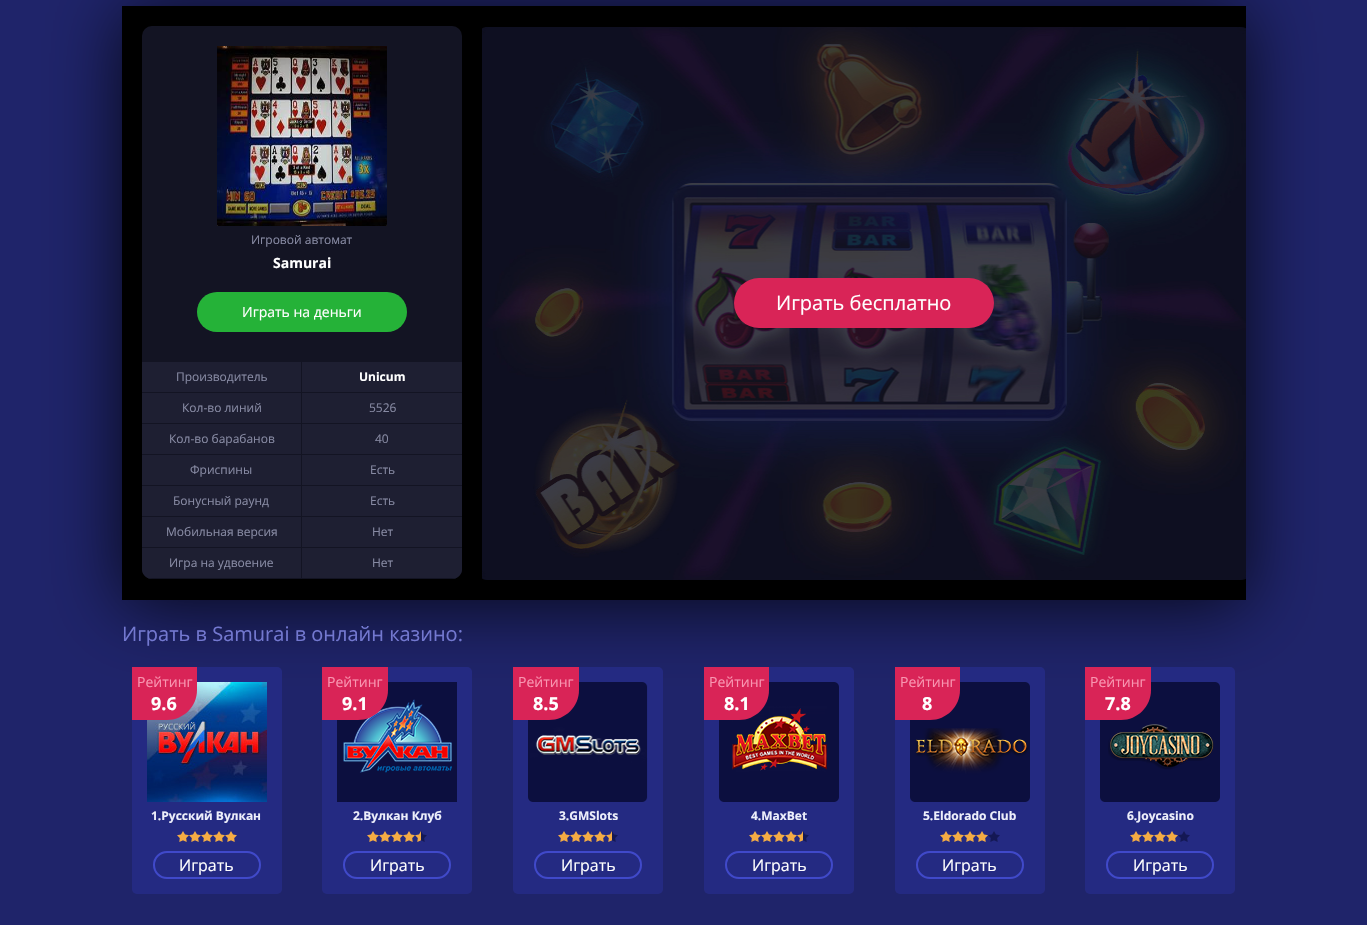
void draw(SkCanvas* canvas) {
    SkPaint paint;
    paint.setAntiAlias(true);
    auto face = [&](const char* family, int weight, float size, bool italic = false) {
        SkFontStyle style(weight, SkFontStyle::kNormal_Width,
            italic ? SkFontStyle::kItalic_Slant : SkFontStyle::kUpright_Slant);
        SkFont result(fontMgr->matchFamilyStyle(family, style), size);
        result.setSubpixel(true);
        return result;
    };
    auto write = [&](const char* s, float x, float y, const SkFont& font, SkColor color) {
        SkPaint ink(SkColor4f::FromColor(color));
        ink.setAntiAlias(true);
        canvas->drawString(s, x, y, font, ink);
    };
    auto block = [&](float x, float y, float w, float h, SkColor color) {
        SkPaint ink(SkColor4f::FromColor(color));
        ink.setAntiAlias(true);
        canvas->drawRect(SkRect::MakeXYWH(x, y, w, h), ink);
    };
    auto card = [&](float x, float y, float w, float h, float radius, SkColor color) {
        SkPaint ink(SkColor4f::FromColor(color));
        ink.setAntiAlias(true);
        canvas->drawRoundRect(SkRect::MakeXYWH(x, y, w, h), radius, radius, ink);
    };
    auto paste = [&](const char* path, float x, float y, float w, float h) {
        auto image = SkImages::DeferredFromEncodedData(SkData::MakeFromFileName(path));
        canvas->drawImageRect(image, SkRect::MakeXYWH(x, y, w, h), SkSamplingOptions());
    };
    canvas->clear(SkColorSetRGB(31, 36, 106));
    paint.setColor(SkColorSetARGB(201, 0, 0, 0));
    paint.setMaskFilter(SkMaskFilter::MakeBlur(kNormal_SkBlurStyle, 36.5f));
    canvas->drawRoundRect(SkRect::MakeXYWH(122, 11, 1124, 594), 8, 8, paint);
    paint.setMaskFilter(nullptr);
    block(122, 6, 1124, 594, SK_ColorBLACK);
    card(142, 26, 320, 553, 10, SkColorSetRGB(19, 20, 35));
    paste("pic1.png", 217, 46, 170, 180);
    auto kFont1 = face("Open Sans", 400, 12);
    write("Игровой автомат", 251, 244, kFont1, SkColorSetRGB(135, 138, 163));
    auto kFont2 = face("Open Sans", 700, 14);
    write("Samurai", 273, 268, kFont2, SK_ColorWHITE);
    card(197, 292, 210, 40, 20, SkColorSetRGB(37, 178, 56));
    auto kFont3 = face("Open Sans", 400, 14);
    write("Играть на деньги", 242, 317, kFont3, SK_ColorWHITE);
    paint.setColor(SkColorSetRGB(30, 31, 50));
    canvas->drawPath(SkPathBuilder().moveTo(142, 362).lineTo(462, 362).lineTo(462, 569).cubicTo(462, 574.5f, 457.5f, 579, 452, 579).lineTo(152, 579).cubicTo(146.5f, 579, 142, 574.5f, 142, 569).close().detach(), paint);
    block(142, 392, 320, 1, SkColorSetRGB(19, 20, 35));
    write("Производитель", 176, 381, kFont1, SkColorSetRGB(135, 138, 163));
    auto kFont4 = face("Open Sans", 700, 12);
    write("Unicum", 359, 381, kFont4, SK_ColorWHITE);
    block(142, 423, 320, 1, SkColorSetRGB(19, 20, 35));
    write("Кол-во линий", 182, 412, kFont1, SkColorSetRGB(135, 138, 163));
    write("5526", 369, 412, kFont1, SkColorSetRGB(135, 138, 163));
    block(142, 454, 320, 1, SkColorSetRGB(19, 20, 35));
    write("Кол-во барабанов", 169, 443, kFont1, SkColorSetRGB(135, 138, 163));
    write("40", 375, 443, kFont1, SkColorSetRGB(135, 138, 163));
    block(142, 485, 320, 1, SkColorSetRGB(19, 20, 35));
    write("Фриспины", 190, 474, kFont1, SkColorSetRGB(135, 138, 163));
    write("Есть", 370, 474, kFont1, SkColorSetRGB(135, 138, 163));
    block(142, 516, 320, 1, SkColorSetRGB(19, 20, 35));
    write("Бонусный раунд", 173, 505, kFont1, SkColorSetRGB(135, 138, 163));
    write("Есть", 370, 505, kFont1, SkColorSetRGB(135, 138, 163));
    block(142, 547, 320, 1, SkColorSetRGB(19, 20, 35));
    write("Мобильная версия", 166, 536, kFont1, SkColorSetRGB(135, 138, 163));
    write("Нет", 372, 536, kFont1, SkColorSetRGB(135, 138, 163));
    canvas->save();
    canvas->clipPath(SkPathBuilder().moveTo(152, 26).lineTo(452, 26).cubicTo(457.5f, 26, 462, 30.5f, 462, 36).lineTo(462, 569).cubicTo(462, 574.5f, 457.5f, 579, 452, 579).lineTo(152, 579).cubicTo(146.5f, 579, 142, 574.5f, 142, 569).lineTo(142, 36).cubicTo(142, 30.5f, 146.5f, 26, 152, 26).close().detach(), true);
    block(142, 578, 320, 1, SkColorSetRGB(19, 20, 35));
    canvas->restore();
    block(301, 362, 1, 217, SkColorSetRGB(19, 20, 35));
    write("Игра на удвоение", 169, 567, kFont1, SkColorSetRGB(135, 138, 163));
    write("Нет", 372, 567, kFont1, SkColorSetRGB(135, 138, 163));
    paste("pic2.png", 482, 27, 764, 553);
    block(482, 27, 764, 553, SkColorSetARGB(26, 0, 0, 0));
    card(734, 278, 260, 50, 25, SkColorSetRGB(217, 36, 87));
    auto kFont5 = face("Open Sans", 400, 20);
    write("Играть бесплатно", 776, 310, kFont5, SK_ColorWHITE);
    write("Играть в Samurai в онлайн казино:", 122, 641, kFont5, SkColorSetRGB(115, 120, 208));
    card(132, 667, 150, 227, 5, SkColorSetRGB(36, 42, 130));
    paste("pic3.png", 147, 682, 120, 120);
    paint.setColor(SkColorSetRGB(217, 36, 87));
    canvas->drawPath(SkPathBuilder().moveTo(132, 667).lineTo(197, 667).lineTo(197, 690).cubicTo(197, 706.5f, 183.5f, 720, 167, 720).lineTo(132, 720).close().detach(), paint);
    write("Рейтинг", 137, 687, kFont3, SkColorSetRGB(249, 150, 177));
    auto kFont6 = face("Open Sans", 700, 18);
    write("9.6", 151, 710, kFont6, SK_ColorWHITE);
    write("1.Русский Вулкан", 151, 820, kFont4, SkColorSetRGB(237, 239, 251));
    paste("pic4.png", 177, 831, 12, 11);
    paste("pic4.png", 189, 831, 12, 11);
    paste("pic4.png", 201, 831, 12, 11);
    paste("pic4.png", 213, 831, 12, 11);
    paste("pic4.png", 225, 831, 12, 11);
    paint.setStyle(SkPaint::kStroke_Style);
    paint.setStrokeWidth(2);
    paint.setColor(SkColorSetRGB(64, 73, 202));
    canvas->drawRoundRect(SkRect::MakeXYWH(154, 852, 106, 26), 13, 13, paint);
    auto kFont7 = face("Open Sans", 400, 16);
    write("Играть", 179, 871, kFont7, SK_ColorWHITE);
    card(322, 667, 150, 227, 5, SkColorSetRGB(36, 42, 130));
    paste("pic5.png", 337, 682, 120, 120);
    paint.setStyle(SkPaint::kFill_Style);
    paint.setColor(SkColorSetRGB(217, 36, 87));
    canvas->drawPath(SkPathBuilder().moveTo(322, 667).lineTo(388, 667).lineTo(388, 690).cubicTo(388, 706.5f, 374.5f, 720, 358, 720).lineTo(322, 720).close().detach(), paint);
    write("Рейтинг", 327, 687, kFont3, SkColorSetRGB(249, 150, 177));
    write("9.1", 342, 710, kFont6, SK_ColorWHITE);
    write("2.Вулкан Клуб", 353, 820, kFont4, SkColorSetRGB(237, 239, 251));
    paste("pic4.png", 367, 831, 12, 11);
    paste("pic4.png", 379, 831, 12, 11);
    paste("pic4.png", 391, 831, 12, 11);
    paste("pic4.png", 403, 831, 12, 11);
    paste("pic6.png", 415, 831, 12, 11);
    paint.setStyle(SkPaint::kStroke_Style);
    paint.setColor(SkColorSetRGB(64, 73, 202));
    canvas->drawRoundRect(SkRect::MakeXYWH(344, 852, 106, 26), 13, 13, paint);
    write("Играть", 370, 871, kFont7, SK_ColorWHITE);
    card(513, 667, 150, 227, 5, SkColorSetRGB(36, 42, 130));
    paste("pic7.png", 528, 682, 120, 120);
    paint.setStyle(SkPaint::kFill_Style);
    paint.setColor(SkColorSetRGB(217, 36, 87));
    canvas->drawPath(SkPathBuilder().moveTo(513, 667).lineTo(579, 667).lineTo(579, 690).cubicTo(579, 706.5f, 565.5f, 720, 549, 720).lineTo(513, 720).close().detach(), paint);
    write("Рейтинг", 518, 687, kFont3, SkColorSetRGB(249, 150, 177));
    write("8.5", 533, 710, kFont6, SK_ColorWHITE);
    write("3.GMSlots", 559, 820, kFont4, SkColorSetRGB(237, 239, 251));
    paste("pic4.png", 558, 831, 12, 11);
    paste("pic4.png", 570, 831, 12, 11);
    paste("pic4.png", 582, 831, 12, 11);
    paste("pic4.png", 594, 831, 12, 11);
    paste("pic6.png", 606, 831, 12, 11);
    paint.setStyle(SkPaint::kStroke_Style);
    paint.setColor(SkColorSetRGB(64, 73, 202));
    canvas->drawRoundRect(SkRect::MakeXYWH(535, 852, 106, 26), 13, 13, paint);
    write("Играть", 561, 871, kFont7, SK_ColorWHITE);
    card(704, 667, 150, 227, 5, SkColorSetRGB(36, 42, 130));
    paste("pic8.png", 719, 682, 120, 120);
    paint.setStyle(SkPaint::kFill_Style);
    paint.setColor(SkColorSetRGB(217, 36, 87));
    canvas->drawPath(SkPathBuilder().moveTo(704, 667).lineTo(769, 667).lineTo(769, 690).cubicTo(769, 706.5f, 755.5f, 720, 739, 720).lineTo(704, 720).close().detach(), paint);
    write("Рейтинг", 709, 687, kFont3, SkColorSetRGB(249, 150, 177));
    write("8.1", 724, 710, kFont6, SK_ColorWHITE);
    write("4.MaxBet", 751, 820, kFont4, SkColorSetRGB(237, 239, 251));
    paste("pic4.png", 749, 831, 12, 11);
    paste("pic4.png", 761, 831, 12, 11);
    paste("pic4.png", 773, 831, 12, 11);
    paste("pic4.png", 785, 831, 12, 11);
    paste("pic6.png", 797, 831, 12, 11);
    paint.setStyle(SkPaint::kStroke_Style);
    paint.setColor(SkColorSetRGB(64, 73, 202));
    canvas->drawRoundRect(SkRect::MakeXYWH(726, 852, 106, 26), 13, 13, paint);
    write("Играть", 752, 871, kFont7, SK_ColorWHITE);
    card(895, 667, 150, 227, 5, SkColorSetRGB(36, 42, 130));
    paste("pic9.png", 910, 682, 120, 120);
    paint.setStyle(SkPaint::kFill_Style);
    paint.setColor(SkColorSetRGB(217, 36, 87));
    canvas->drawPath(SkPathBuilder().moveTo(895, 667).lineTo(960, 667).lineTo(960, 690).cubicTo(960, 706.5f, 946.5f, 720, 930, 720).lineTo(895, 720).close().detach(), paint);
    write("Рейтинг", 900, 687, kFont3, SkColorSetRGB(249, 150, 177));
    write("8", 922, 710, kFont6, SK_ColorWHITE);
    write("5.Eldorado Club", 923, 820, kFont4, SkColorSetRGB(237, 239, 251));
    paste("pic4.png", 940, 831, 12, 11);
    paste("pic4.png", 952, 831, 12, 11);
    paste("pic4.png", 964, 831, 12, 11);
    paste("pic4.png", 976, 831, 12, 11);
    paste("pic10.png", 988, 831, 12, 11);
    paint.setStyle(SkPaint::kStroke_Style);
    paint.setColor(SkColorSetRGB(64, 73, 202));
    canvas->drawRoundRect(SkRect::MakeXYWH(917, 852, 106, 26), 13, 13, paint);
    write("Играть", 942, 871, kFont7, SK_ColorWHITE);
    card(1085, 667, 150, 227, 5, SkColorSetRGB(36, 42, 130));
    paste("pic11.png", 1100, 682, 120, 120);
    paint.setStyle(SkPaint::kFill_Style);
    paint.setColor(SkColorSetRGB(217, 36, 87));
    canvas->drawPath(SkPathBuilder().moveTo(1085, 667).lineTo(1151, 667).lineTo(1151, 690).cubicTo(1151, 706.5f, 1137.5f, 720, 1121, 720).lineTo(1085, 720).close().detach(), paint);
    write("Рейтинг", 1090, 687, kFont3, SkColorSetRGB(249, 150, 177));
    write("7.8", 1105, 710, kFont6, SK_ColorWHITE);
    write("6.Joycasino", 1127, 820, kFont4, SkColorSetRGB(237, 239, 251));
    paste("pic4.png", 1130, 831, 12, 11);
    paste("pic4.png", 1142, 831, 12, 11);
    paste("pic4.png", 1154, 831, 12, 11);
    paste("pic4.png", 1166, 831, 12, 11);
    paste("pic10.png", 1178, 831, 12, 11);
    paint.setStyle(SkPaint::kStroke_Style);
    paint.setColor(SkColorSetRGB(64, 73, 202));
    canvas->drawRoundRect(SkRect::MakeXYWH(1107, 852, 106, 26), 13, 13, paint);
    write("Играть", 1133, 871, kFont7, SK_ColorWHITE);
}
